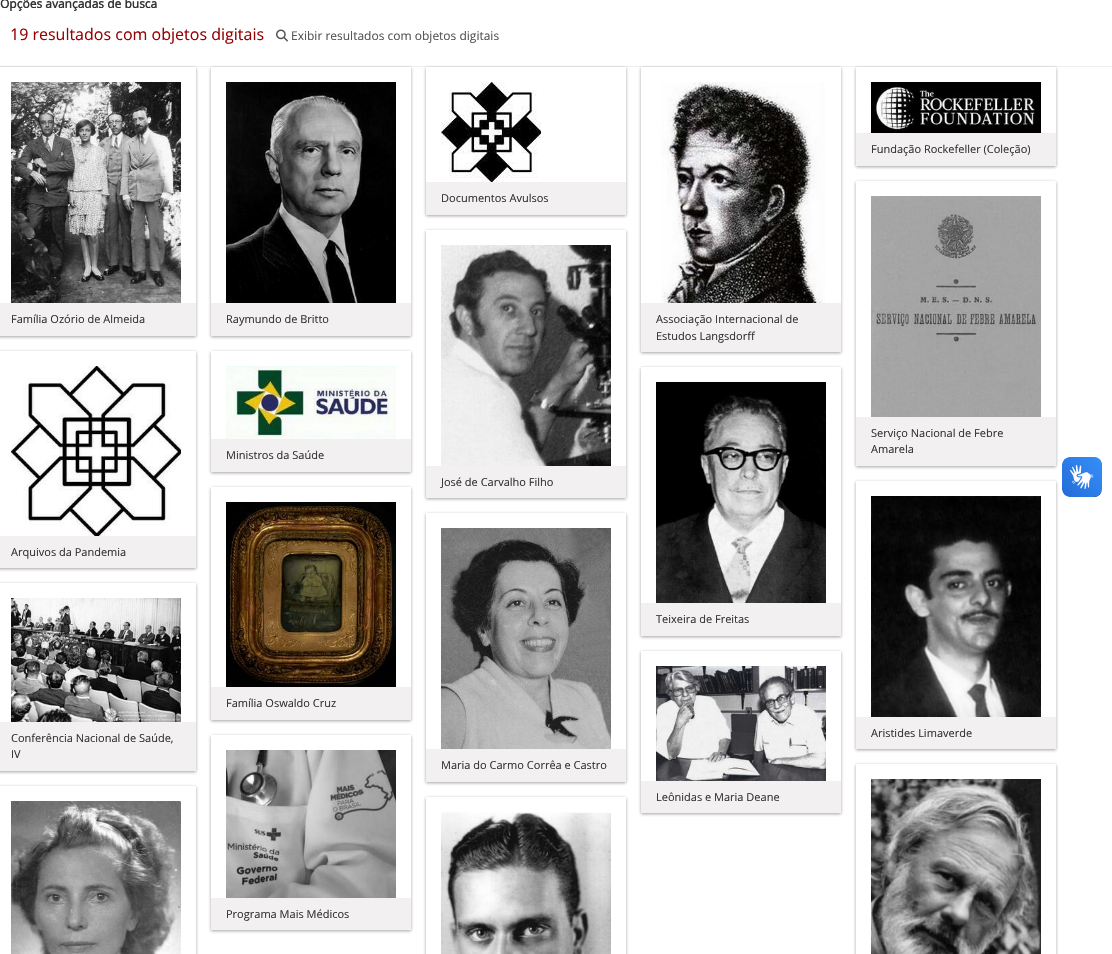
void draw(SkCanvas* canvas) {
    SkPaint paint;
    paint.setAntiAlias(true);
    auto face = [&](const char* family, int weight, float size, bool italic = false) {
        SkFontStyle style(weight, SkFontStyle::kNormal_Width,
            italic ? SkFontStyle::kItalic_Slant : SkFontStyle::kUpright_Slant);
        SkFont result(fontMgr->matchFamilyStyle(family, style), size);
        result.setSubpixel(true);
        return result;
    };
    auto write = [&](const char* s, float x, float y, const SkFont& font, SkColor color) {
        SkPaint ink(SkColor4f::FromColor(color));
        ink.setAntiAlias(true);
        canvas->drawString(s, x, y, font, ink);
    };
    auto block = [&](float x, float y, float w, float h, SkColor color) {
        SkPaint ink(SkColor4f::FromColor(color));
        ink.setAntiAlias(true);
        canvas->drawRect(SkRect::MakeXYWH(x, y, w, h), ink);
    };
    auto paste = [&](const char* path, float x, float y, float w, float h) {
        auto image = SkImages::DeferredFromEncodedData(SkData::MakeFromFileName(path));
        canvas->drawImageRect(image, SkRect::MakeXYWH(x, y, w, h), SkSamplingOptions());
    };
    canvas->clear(SK_ColorWHITE);
    auto kFont1 = face("Open Sans", 700, 12);
    write("Opções avançadas de busca", 0, 8, kFont1, SkColorSetRGB(51, 51, 51));
    block(0, 66, 1112, 1, SkColorSetRGB(238, 238, 238));
    auto kFont2 = face("Open Sans", 400, 16);
    write("19 resultados com objetos digitais", 10, 40, kFont2, SkColorSetRGB(149, 2, 4));
    paste("pic1.png", 276, 29, 12, 13);
    auto kFont3 = face("Open Sans", 400, 12);
    write("Exibir resultados com objetos digitais", 291, 40, kFont3, SkColorSetRGB(85, 85, 85));
    canvas->save();
    canvas->clipPath(SkPathBuilder(SkPathFillType::kEvenOdd).moveTo(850, 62).lineTo(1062, 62).lineTo(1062, 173).lineTo(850, 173).close().moveTo(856, 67).lineTo(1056, 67).lineTo(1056, 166).lineTo(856, 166).close().detach(), true);
    paint.setColor(SkColorSetARGB(102, 25, 25, 25));
    paint.setMaskFilter(SkMaskFilter::MakeBlur(kNormal_SkBlurStyle, 1.5f));
    canvas->drawRect(SkRect::MakeXYWH(856, 68, 200, 99), paint);
    paint.setMaskFilter(nullptr);
    canvas->restore();
    paste("pic2.png", 871, 82, 170, 51);
    block(856, 133, 200, 33, SkColorSetRGB(242, 240, 240));
    auto kFont4 = face("Open Sans", 400, 11);
    write("Fundação Rockefeller (Coleção)", 871, 153, kFont4, SkColorSetRGB(51, 51, 51));
    canvas->save();
    canvas->clipPath(SkPathBuilder(SkPathFillType::kEvenOdd).moveTo(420, 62).lineTo(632, 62).lineTo(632, 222).lineTo(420, 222).close().moveTo(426, 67).lineTo(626, 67).lineTo(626, 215).lineTo(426, 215).close().detach(), true);
    paint.setMaskFilter(SkMaskFilter::MakeBlur(kNormal_SkBlurStyle, 1.5f));
    canvas->drawRect(SkRect::MakeXYWH(426, 68, 200, 148), paint);
    paint.setMaskFilter(nullptr);
    canvas->restore();
    paste("pic3.png", 441, 82, 100, 100);
    block(426, 182, 200, 33, SkColorSetRGB(242, 240, 240));
    write("Documentos Avulsos", 441, 202, kFont4, SkColorSetRGB(51, 51, 51));
    canvas->save();
    canvas->clipPath(SkPathBuilder(SkPathFillType::kEvenOdd).moveTo(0, 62).lineTo(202, 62).lineTo(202, 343).lineTo(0, 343).close().moveTo(-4, 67).lineTo(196, 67).lineTo(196, 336).lineTo(-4, 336).close().detach(), true);
    paint.setMaskFilter(SkMaskFilter::MakeBlur(kNormal_SkBlurStyle, 1.5f));
    canvas->drawRect(SkRect::MakeXYWH(-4, 68, 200, 269), paint);
    paint.setMaskFilter(nullptr);
    canvas->restore();
    paste("pic4.png", 11, 82, 170, 221);
    block(0, 303, 196, 33, SkColorSetRGB(242, 240, 240));
    write("Família Ozório de Almeida", 11, 323, kFont4, SkColorSetRGB(51, 51, 51));
    canvas->save();
    canvas->clipPath(SkPathBuilder(SkPathFillType::kEvenOdd).moveTo(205, 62).lineTo(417, 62).lineTo(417, 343).lineTo(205, 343).close().moveTo(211, 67).lineTo(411, 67).lineTo(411, 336).lineTo(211, 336).close().detach(), true);
    paint.setMaskFilter(SkMaskFilter::MakeBlur(kNormal_SkBlurStyle, 1.5f));
    canvas->drawRect(SkRect::MakeXYWH(211, 68, 200, 269), paint);
    paint.setMaskFilter(nullptr);
    canvas->restore();
    paste("pic5.png", 226, 82, 170, 221);
    block(211, 303, 200, 33, SkColorSetRGB(242, 240, 240));
    write("Raymundo de Britto", 226, 323, kFont4, SkColorSetRGB(51, 51, 51));
    canvas->save();
    canvas->clipPath(SkPathBuilder(SkPathFillType::kEvenOdd).moveTo(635, 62).lineTo(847, 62).lineTo(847, 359).lineTo(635, 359).close().moveTo(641, 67).lineTo(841, 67).lineTo(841, 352).lineTo(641, 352).close().detach(), true);
    paint.setMaskFilter(SkMaskFilter::MakeBlur(kNormal_SkBlurStyle, 1.5f));
    canvas->drawRect(SkRect::MakeXYWH(641, 68, 200, 285), paint);
    paint.setMaskFilter(nullptr);
    canvas->restore();
    paste("pic6.png", 661, 82, 164, 221);
    block(641, 303, 200, 49, SkColorSetRGB(242, 240, 240));
    write("Associação Internacional de", 656, 323, kFont4, SkColorSetRGB(51, 51, 51));
    write("Estudos Langsdorff", 656, 340, kFont4, SkColorSetRGB(51, 51, 51));
    canvas->save();
    canvas->clipPath(SkPathBuilder(SkPathFillType::kEvenOdd).moveTo(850, 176).lineTo(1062, 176).lineTo(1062, 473).lineTo(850, 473).close().moveTo(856, 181).lineTo(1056, 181).lineTo(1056, 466).lineTo(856, 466).close().detach(), true);
    paint.setMaskFilter(SkMaskFilter::MakeBlur(kNormal_SkBlurStyle, 1.5f));
    canvas->drawRect(SkRect::MakeXYWH(856, 182, 200, 285), paint);
    paint.setMaskFilter(nullptr);
    canvas->restore();
    paste("pic7.png", 871, 196, 170, 221);
    block(856, 417, 200, 49, SkColorSetRGB(242, 240, 240));
    write("Serviço Nacional de Febre", 871, 437, kFont4, SkColorSetRGB(51, 51, 51));
    write("Amarela", 871, 453, kFont4, SkColorSetRGB(51, 51, 51));
    canvas->save();
    canvas->clipPath(SkPathBuilder(SkPathFillType::kEvenOdd).moveTo(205, 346).lineTo(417, 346).lineTo(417, 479).lineTo(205, 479).close().moveTo(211, 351).lineTo(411, 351).lineTo(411, 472).lineTo(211, 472).close().detach(), true);
    paint.setMaskFilter(SkMaskFilter::MakeBlur(kNormal_SkBlurStyle, 1.5f));
    canvas->drawRect(SkRect::MakeXYWH(211, 352, 200, 121), paint);
    paint.setMaskFilter(nullptr);
    canvas->restore();
    paste("pic8.png", 226, 366, 170, 73);
    block(211, 439, 200, 33, SkColorSetRGB(242, 240, 240));
    write("Ministros da Saúde", 226, 459, kFont4, SkColorSetRGB(51, 51, 51));
    canvas->save();
    canvas->clipPath(SkPathBuilder(SkPathFillType::kEvenOdd).moveTo(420, 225).lineTo(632, 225).lineTo(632, 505).lineTo(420, 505).close().moveTo(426, 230).lineTo(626, 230).lineTo(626, 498).lineTo(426, 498).close().detach(), true);
    paint.setMaskFilter(SkMaskFilter::MakeBlur(kNormal_SkBlurStyle, 1.5f));
    canvas->drawRect(SkRect::MakeXYWH(426, 231, 200, 268), paint);
    paint.setMaskFilter(nullptr);
    canvas->restore();
    paste("pic9.png", 441, 245, 170, 221);
    block(426, 466, 200, 32, SkColorSetRGB(242, 240, 240));
    write("José de Carvalho Filho", 441, 486, kFont4, SkColorSetRGB(51, 51, 51));
    canvas->save();
    canvas->clipPath(SkPathBuilder(SkPathFillType::kEvenOdd).moveTo(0, 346).lineTo(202, 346).lineTo(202, 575).lineTo(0, 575).close().moveTo(-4, 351).lineTo(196, 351).lineTo(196, 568).lineTo(-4, 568).close().detach(), true);
    paint.setMaskFilter(SkMaskFilter::MakeBlur(kNormal_SkBlurStyle, 1.5f));
    canvas->drawRect(SkRect::MakeXYWH(-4, 352, 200, 217), paint);
    paint.setMaskFilter(nullptr);
    canvas->restore();
    paste("pic10.png", 11, 366, 170, 170);
    block(0, 536, 196, 32, SkColorSetRGB(242, 240, 240));
    write("Arquivos da Pandemia", 11, 556, kFont4, SkColorSetRGB(51, 51, 51));
    canvas->save();
    canvas->clipPath(SkPathBuilder(SkPathFillType::kEvenOdd).moveTo(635, 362).lineTo(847, 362).lineTo(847, 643).lineTo(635, 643).close().moveTo(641, 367).lineTo(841, 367).lineTo(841, 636).lineTo(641, 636).close().detach(), true);
    paint.setMaskFilter(SkMaskFilter::MakeBlur(kNormal_SkBlurStyle, 1.5f));
    canvas->drawRect(SkRect::MakeXYWH(641, 368, 200, 269), paint);
    paint.setMaskFilter(nullptr);
    canvas->restore();
    paste("pic11.png", 656, 382, 170, 221);
    block(641, 603, 200, 33, SkColorSetRGB(242, 240, 240));
    write("Teixeira de Freitas", 656, 623, kFont4, SkColorSetRGB(51, 51, 51));
    canvas->save();
    canvas->clipPath(SkPathBuilder(SkPathFillType::kEvenOdd).moveTo(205, 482).lineTo(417, 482).lineTo(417, 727).lineTo(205, 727).close().moveTo(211, 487).lineTo(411, 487).lineTo(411, 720).lineTo(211, 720).close().detach(), true);
    paint.setMaskFilter(SkMaskFilter::MakeBlur(kNormal_SkBlurStyle, 1.5f));
    canvas->drawRect(SkRect::MakeXYWH(211, 488, 200, 233), paint);
    paint.setMaskFilter(nullptr);
    canvas->restore();
    paste("pic12.png", 226, 502, 170, 185);
    block(211, 687, 200, 33, SkColorSetRGB(242, 240, 240));
    write("Família Oswaldo Cruz", 226, 707, kFont4, SkColorSetRGB(51, 51, 51));
    canvas->save();
    canvas->clipPath(SkPathBuilder(SkPathFillType::kEvenOdd).moveTo(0, 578).lineTo(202, 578).lineTo(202, 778).lineTo(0, 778).close().moveTo(-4, 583).lineTo(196, 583).lineTo(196, 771).lineTo(-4, 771).close().detach(), true);
    paint.setMaskFilter(SkMaskFilter::MakeBlur(kNormal_SkBlurStyle, 1.5f));
    canvas->drawRect(SkRect::MakeXYWH(-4, 584, 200, 188), paint);
    paint.setMaskFilter(nullptr);
    canvas->restore();
    paste("pic13.png", 11, 598, 170, 124);
    block(0, 722, 196, 49, SkColorSetRGB(242, 240, 240));
    write("Conferência Nacional de Saúde,", 11, 742, kFont4, SkColorSetRGB(51, 51, 51));
    write("IV", 11, 758, kFont4, SkColorSetRGB(51, 51, 51));
    canvas->save();
    canvas->clipPath(SkPathBuilder(SkPathFillType::kEvenOdd).moveTo(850, 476).lineTo(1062, 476).lineTo(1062, 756).lineTo(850, 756).close().moveTo(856, 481).lineTo(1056, 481).lineTo(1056, 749).lineTo(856, 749).close().detach(), true);
    paint.setMaskFilter(SkMaskFilter::MakeBlur(kNormal_SkBlurStyle, 1.5f));
    canvas->drawRect(SkRect::MakeXYWH(856, 482, 200, 268), paint);
    paint.setMaskFilter(nullptr);
    canvas->restore();
    paste("pic14.png", 871, 496, 170, 221);
    block(856, 717, 200, 32, SkColorSetRGB(242, 240, 240));
    write("Aristides Limaverde", 871, 737, kFont4, SkColorSetRGB(51, 51, 51));
    canvas->save();
    canvas->clipPath(SkPathBuilder(SkPathFillType::kEvenOdd).moveTo(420, 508).lineTo(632, 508).lineTo(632, 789).lineTo(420, 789).close().moveTo(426, 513).lineTo(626, 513).lineTo(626, 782).lineTo(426, 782).close().detach(), true);
    paint.setMaskFilter(SkMaskFilter::MakeBlur(kNormal_SkBlurStyle, 1.5f));
    canvas->drawRect(SkRect::MakeXYWH(426, 514, 200, 269), paint);
    paint.setMaskFilter(nullptr);
    canvas->restore();
    paste("pic15.png", 441, 528, 170, 221);
    block(426, 749, 200, 33, SkColorSetRGB(242, 240, 240));
    write("Maria do Carmo Corrêa e Castro", 441, 769, kFont4, SkColorSetRGB(51, 51, 51));
    canvas->save();
    canvas->clipPath(SkPathBuilder(SkPathFillType::kEvenOdd).moveTo(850, 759).lineTo(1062, 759).lineTo(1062, 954).lineTo(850, 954).close().moveTo(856, 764).lineTo(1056, 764).lineTo(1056, 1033).lineTo(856, 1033).close().detach(), true);
    paint.setMaskFilter(SkMaskFilter::MakeBlur(kNormal_SkBlurStyle, 1.5f));
    canvas->drawRect(SkRect::MakeXYWH(856, 765, 200, 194), paint);
    paint.setMaskFilter(nullptr);
    canvas->restore();
    paste("pic16.png", 871, 779, 170, 175);
    canvas->save();
    canvas->clipPath(SkPathBuilder(SkPathFillType::kEvenOdd).moveTo(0, 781).lineTo(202, 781).lineTo(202, 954).lineTo(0, 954).close().moveTo(-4, 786).lineTo(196, 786).lineTo(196, 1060).lineTo(-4, 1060).close().detach(), true);
    paint.setMaskFilter(SkMaskFilter::MakeBlur(kNormal_SkBlurStyle, 1.5f));
    canvas->drawRect(SkRect::MakeXYWH(-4, 787, 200, 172), paint);
    paint.setMaskFilter(nullptr);
    canvas->restore();
    paste("pic17.png", 11, 801, 170, 153);
    canvas->save();
    canvas->clipPath(SkPathBuilder(SkPathFillType::kEvenOdd).moveTo(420, 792).lineTo(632, 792).lineTo(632, 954).lineTo(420, 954).close().moveTo(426, 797).lineTo(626, 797).lineTo(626, 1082).lineTo(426, 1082).close().detach(), true);
    paint.setMaskFilter(SkMaskFilter::MakeBlur(kNormal_SkBlurStyle, 1.5f));
    canvas->drawRect(SkRect::MakeXYWH(426, 798, 200, 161), paint);
    paint.setMaskFilter(nullptr);
    canvas->restore();
    paste("pic18.png", 441, 812, 170, 142);
    canvas->save();
    canvas->clipPath(SkPathBuilder(SkPathFillType::kEvenOdd).moveTo(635, 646).lineTo(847, 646).lineTo(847, 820).lineTo(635, 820).close().moveTo(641, 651).lineTo(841, 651).lineTo(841, 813).lineTo(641, 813).close().detach(), true);
    paint.setMaskFilter(SkMaskFilter::MakeBlur(kNormal_SkBlurStyle, 1.5f));
    canvas->drawRect(SkRect::MakeXYWH(641, 652, 200, 162), paint);
    paint.setMaskFilter(nullptr);
    canvas->restore();
    paste("pic19.png", 656, 666, 170, 115);
    block(641, 781, 200, 32, SkColorSetRGB(242, 240, 240));
    write("Leônidas e Maria Deane", 656, 801, kFont4, SkColorSetRGB(51, 51, 51));
    canvas->save();
    canvas->clipPath(SkPathBuilder(SkPathFillType::kEvenOdd).moveTo(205, 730).lineTo(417, 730).lineTo(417, 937).lineTo(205, 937).close().moveTo(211, 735).lineTo(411, 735).lineTo(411, 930).lineTo(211, 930).close().detach(), true);
    paint.setMaskFilter(SkMaskFilter::MakeBlur(kNormal_SkBlurStyle, 1.5f));
    canvas->drawRect(SkRect::MakeXYWH(211, 736, 200, 195), paint);
    paint.setMaskFilter(nullptr);
    canvas->restore();
    paste("pic20.png", 226, 750, 170, 148);
    block(211, 898, 200, 32, SkColorSetRGB(242, 240, 240));
    write("Programa Mais Médicos", 226, 918, kFont4, SkColorSetRGB(51, 51, 51));
    paste("pic21.png", 1062, 457, 40, 40);
    paste("pic22.png", 1062, 457, 40, 40);
}
